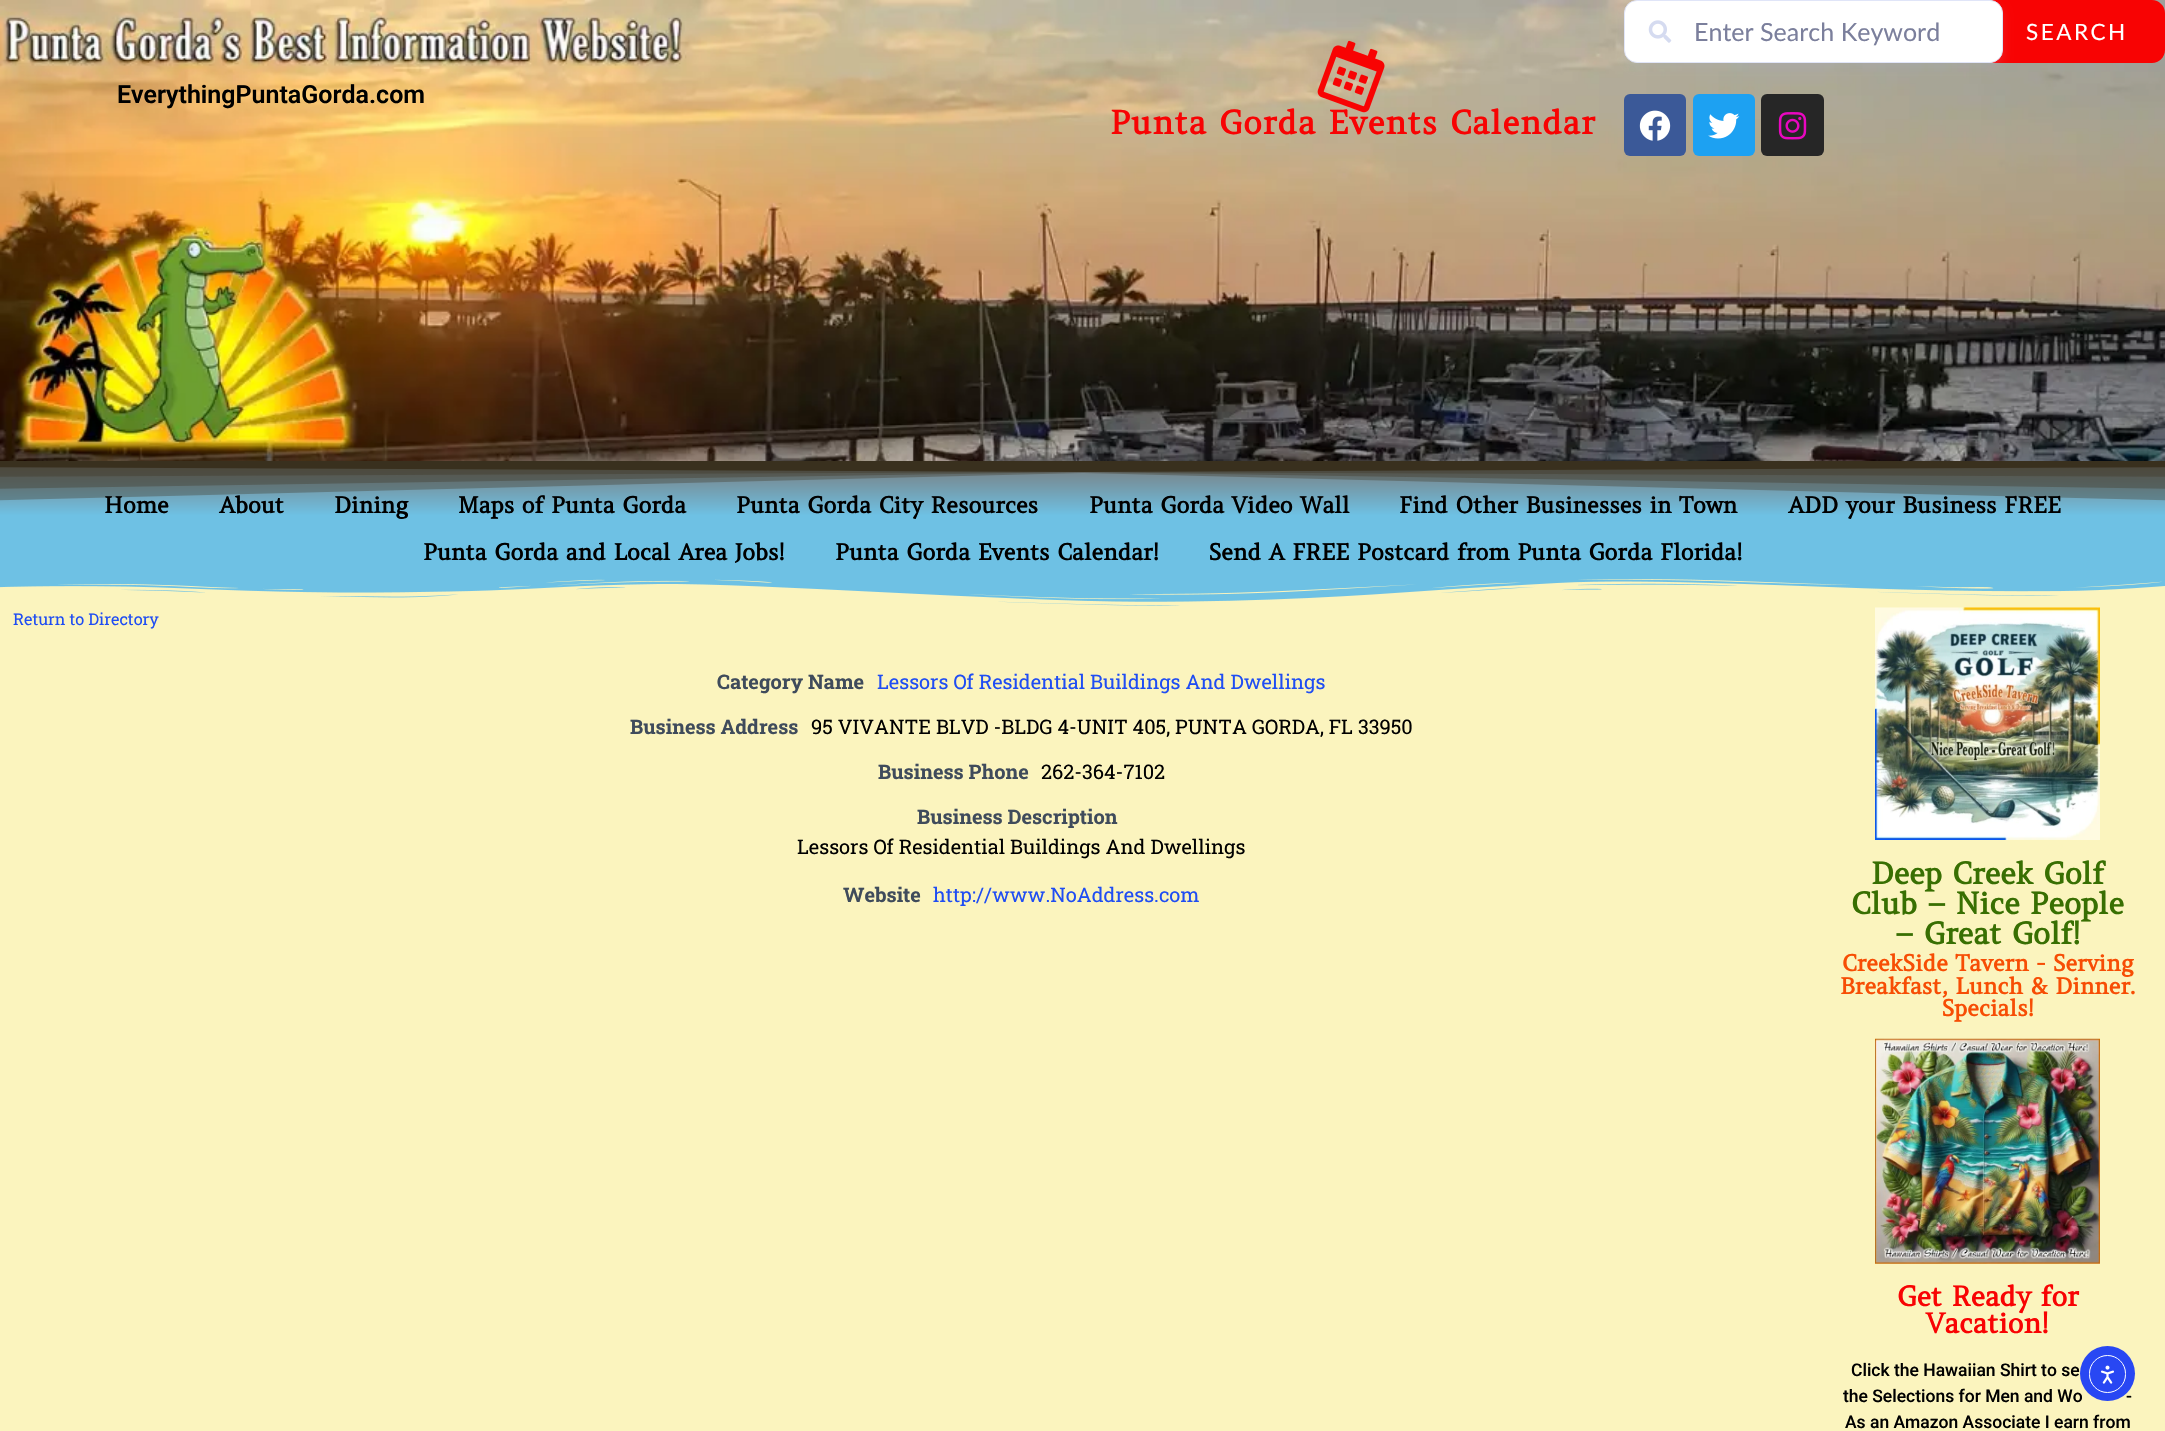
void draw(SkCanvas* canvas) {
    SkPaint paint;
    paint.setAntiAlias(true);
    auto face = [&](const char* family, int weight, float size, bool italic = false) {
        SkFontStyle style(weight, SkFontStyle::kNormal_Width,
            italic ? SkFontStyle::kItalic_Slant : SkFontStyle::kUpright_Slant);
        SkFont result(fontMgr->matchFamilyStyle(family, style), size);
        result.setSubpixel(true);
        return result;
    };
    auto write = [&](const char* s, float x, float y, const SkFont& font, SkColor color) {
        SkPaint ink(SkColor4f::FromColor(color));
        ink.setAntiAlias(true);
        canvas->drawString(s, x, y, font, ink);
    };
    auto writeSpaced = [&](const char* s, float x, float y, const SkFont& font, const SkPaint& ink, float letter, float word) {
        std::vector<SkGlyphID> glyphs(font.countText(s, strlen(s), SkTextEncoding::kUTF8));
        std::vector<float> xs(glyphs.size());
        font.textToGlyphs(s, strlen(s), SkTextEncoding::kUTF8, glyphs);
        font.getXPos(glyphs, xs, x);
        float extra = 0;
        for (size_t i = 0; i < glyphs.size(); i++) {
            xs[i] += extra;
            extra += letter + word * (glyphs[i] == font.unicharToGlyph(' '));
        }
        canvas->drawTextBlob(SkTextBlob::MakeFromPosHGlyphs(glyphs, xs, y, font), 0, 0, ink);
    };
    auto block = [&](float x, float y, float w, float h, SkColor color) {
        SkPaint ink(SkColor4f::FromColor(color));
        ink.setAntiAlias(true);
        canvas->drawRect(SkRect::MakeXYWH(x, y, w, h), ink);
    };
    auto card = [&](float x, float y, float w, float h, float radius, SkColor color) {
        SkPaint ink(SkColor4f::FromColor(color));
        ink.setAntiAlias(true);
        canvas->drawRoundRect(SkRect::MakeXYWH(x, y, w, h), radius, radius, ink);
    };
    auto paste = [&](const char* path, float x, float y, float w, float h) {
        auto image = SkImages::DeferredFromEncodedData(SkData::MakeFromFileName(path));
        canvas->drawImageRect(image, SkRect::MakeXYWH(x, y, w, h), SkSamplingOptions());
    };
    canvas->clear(SK_ColorWHITE);
    paste("pic1.png", 0, 0, 2165, 461);
    paint.setColor(SkColorSetRGB(248, 3, 3));
    canvas->drawPath(SkPathBuilder().moveTo(1994, 0).lineTo(2152, 0).cubicTo(2159, 0, 2165, 6, 2165, 13).lineTo(2165, 50).cubicTo(2165, 57, 2159, 63, 2152, 63).lineTo(1994, 63).cubicTo(1992, 63, 1990, 61, 1990, 59).lineTo(1990, 4).cubicTo(1990, 2, 1992, 0, 1994, 0).close().detach(), paint);
    paint.setColor(SkColorSetARGB(38, 165, 174, 213));
    paint.setMaskFilter(SkMaskFilter::MakeBlur(kNormal_SkBlurStyle, 5));
    canvas->drawRoundRect(SkRect::MakeXYWH(1624, 5, 379, 63), 13, 13, paint);
    paint.setMaskFilter(nullptr);
    paint.setColor(SK_ColorWHITE);
    canvas->drawRoundRect(SkRect::MakeXYWH(1624.5f, 0.5f, 378, 62), 12.5f, 12.5f, paint);
    paint.setStyle(SkPaint::kStroke_Style);
    paint.setStrokeWidth(1);
    paint.setColor(SkColorSetRGB(224, 229, 248));
    canvas->drawRoundRect(SkRect::MakeXYWH(1624.5f, 0.5f, 378, 62), 12.5f, 12.5f, paint);
    paste("pic2.png", 1648, 20, 24, 23);
    auto kFont1 = face("Lato", 400, 25);
    write("Enter Search Keyword", 1694, 41, kFont1, SkColorSetRGB(123, 127, 156));
    auto kFont2 = face("Lato", 400, 22.5f);
    paint.setStyle(SkPaint::kFill_Style);
    paint.setColor(SK_ColorWHITE);
    writeSpaced("SEARCH", 2026, 40, kFont2, paint, 2.5f, 0);
    card(1624, 94, 62, 62, 6, SkColorSetRGB(59, 89, 152));
    paste("pic3.png", 1639, 110, 32, 31);
    card(1693, 94, 62, 62, 6, SkColorSetRGB(29, 161, 242));
    paste("pic4.png", 1708, 113, 32, 26);
    card(1761, 94, 63, 62, 6, SkColorSetRGB(38, 38, 38));
    paste("pic5.png", 1778, 112, 29, 28);
    auto kFont3 = face("Roboto", 600, 25);
    write("EverythingPuntaGorda.com", 117, 103, kFont3, SK_ColorBLACK);
    auto kFont4 = face("Amethysta", 700, 32.5f);
    paint.setColor(SkColorSetRGB(248, 3, 3));
    writeSpaced("Punta Gorda Events Calendar", 1110, 134, kFont4, paint, 1, 0);
    paste("pic6.png", 1317, 40, 68, 73);
    {
        const SkColor colors[] = {SkColorSetRGB(122, 122, 122), SkColorSetRGB(110, 193, 228)};
        const float stops[] = {0, 0.47f};
        const SkPoint ends[] = {{1083, 462}, {1083, 576}};
        paint.setShader(SkGradientShader::MakeLinear(ends, colors, stops, 2, SkTileMode::kClamp));
        paint.setAlpha(255);
    }
    canvas->drawRect(SkRect::MakeXYWH(0, 467, 2165, 109), paint);
    paint.setShader(nullptr);
    paint.setColor(SkColorSetARGB(84, 57, 48, 30));
    canvas->drawPath(SkPathBuilder().moveTo(-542, 461).lineTo(-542, 514).lineTo(1083, 473).lineTo(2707, 514).lineTo(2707, 461).close().detach(), paint);
    canvas->drawPath(SkPathBuilder().moveTo(-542, 461).lineTo(-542, 497).lineTo(1083, 472).lineTo(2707, 497).lineTo(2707, 461).close().detach(), paint);
    canvas->drawPath(SkPathBuilder().moveTo(-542, 461).lineTo(-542, 479).lineTo(1083, 472).lineTo(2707, 479).lineTo(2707, 461).close().detach(), paint);
    paint.setColor(SkColorSetRGB(57, 48, 30));
    canvas->drawPath(SkPathBuilder().moveTo(-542, 461).lineTo(-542, 465).lineTo(1083, 472).lineTo(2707, 465).lineTo(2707, 461).close().detach(), paint);
    auto kFont5 = face("Amethysta", 700, 22.5f);
    write("Home", 104, 513, kFont5, SK_ColorBLACK);
    write("About", 219, 513, kFont5, SK_ColorBLACK);
    write("Dining", 334, 513, kFont5, SK_ColorBLACK);
    write("Maps of Punta Gorda", 458, 513, kFont5, SK_ColorBLACK);
    write("Punta Gorda City Resources", 736, 513, kFont5, SK_ColorBLACK);
    write("Punta Gorda Video Wall", 1089, 513, kFont5, SK_ColorBLACK);
    write("Find Other Businesses in Town", 1399, 513, kFont5, SK_ColorBLACK);
    write("ADD your Business FREE", 1788, 513, kFont5, SK_ColorBLACK);
    write("Punta Gorda and Local Area Jobs!", 423, 560, kFont5, SK_ColorBLACK);
    write("Punta Gorda Events Calendar!", 835, 560, kFont5, SK_ColorBLACK);
    write("Send A FREE Postcard from Punta Gorda Florida!", 1209, 560, kFont5, SK_ColorBLACK);
    block(0, 579, 2165, 852, SkColorSetRGB(251, 244, 190));
    paste("pic7.png", 0, 576, 2165, 30);
    auto kFont6 = face("Roboto Slab", 400, 16.25f);
    write("Return to Directory", 13, 625, kFont6, SkColorSetRGB(31, 77, 243));
    auto kFont7 = face("Roboto Slab", 700, 20);
    write("Category Name", 717, 689, kFont7, SkColorSetRGB(63, 75, 91));
    auto kFont8 = face("Roboto Slab", 400, 20);
    write("Lessors Of Residential Buildings And Dwellings", 877, 689, kFont8, SkColorSetRGB(31, 77, 243));
    write("Business Address", 630, 734, kFont7, SkColorSetRGB(63, 75, 91));
    write("95 VIVANTE BLVD -BLDG 4-UNIT 405, PUNTA GORDA, FL 33950", 811, 734, kFont8, SK_ColorBLACK);
    write("Business Phone", 878, 779, kFont7, SkColorSetRGB(63, 75, 91));
    write("262-364-7102", 1041, 779, kFont8, SK_ColorBLACK);
    write("Business Description", 917, 824, kFont7, SkColorSetRGB(63, 75, 91));
    write("Lessors Of Residential Buildings And Dwellings", 797, 854, kFont8, SK_ColorBLACK);
    write("Website", 843, 902, kFont7, SkColorSetRGB(63, 75, 91));
    write("http://www.NoAddress.com", 933, 902, kFont8, SkColorSetRGB(31, 77, 243));
    paste("pic8.png", 1875, 607, 225, 233);
    auto kFont9 = face("Amethysta", 700, 30);
    write("Deep Creek Golf", 1871, 884, kFont9, SkColorSetRGB(56, 111, 2));
    write("Club – Nice People", 1851, 914, kFont9, SkColorSetRGB(56, 111, 2));
    write("– Great Golf!", 1895, 944, kFont9, SkColorSetRGB(56, 111, 2));
    write("CreekSide Tavern - Serving", 1842, 971, kFont5, SkColorSetRGB(247, 77, 4));
    write("Breakfast, Lunch & Dinner.", 1840, 994, kFont5, SkColorSetRGB(247, 77, 4));
    write("Specials!", 1942, 1016, kFont5, SkColorSetRGB(247, 77, 4));
    paste("pic9.png", 1875, 1038, 225, 226);
    auto kFont10 = face("Amethysta", 700, 27.5f);
    write("Get Ready for", 1897, 1306, kFont10, SkColorSetRGB(248, 3, 3));
    write("Vacation!", 1926, 1333, kFont10, SkColorSetRGB(248, 3, 3));
    auto kFont11 = face("Roboto", 500, 17.5f);
    write("Click the Hawaiian Shirt to se", 1851, 1376, kFont11, SK_ColorBLACK);
    write("the Selections for Men and Wo", 1843, 1402, kFont11, SK_ColorBLACK);
    write("-", 2126, 1402, kFont11, SK_ColorBLACK);
    write("As an Amazon Associate I earn from", 1845, 1428, kFont11, SK_ColorBLACK);
    paint.setColor(SkColorSetRGB(40, 71, 243));
    canvas->drawCircle(2107.5f, 1373.5f, 27.5f, paint);
    paint.setStyle(SkPaint::kStroke_Style);
    paint.setColor(SK_ColorWHITE);
    canvas->drawRoundRect(SkRect::MakeXYWH(2089.5f, 1355.5f, 36, 37), 18, 18, paint);
    paste("pic10.png", 2100, 1365, 14, 19);
}
